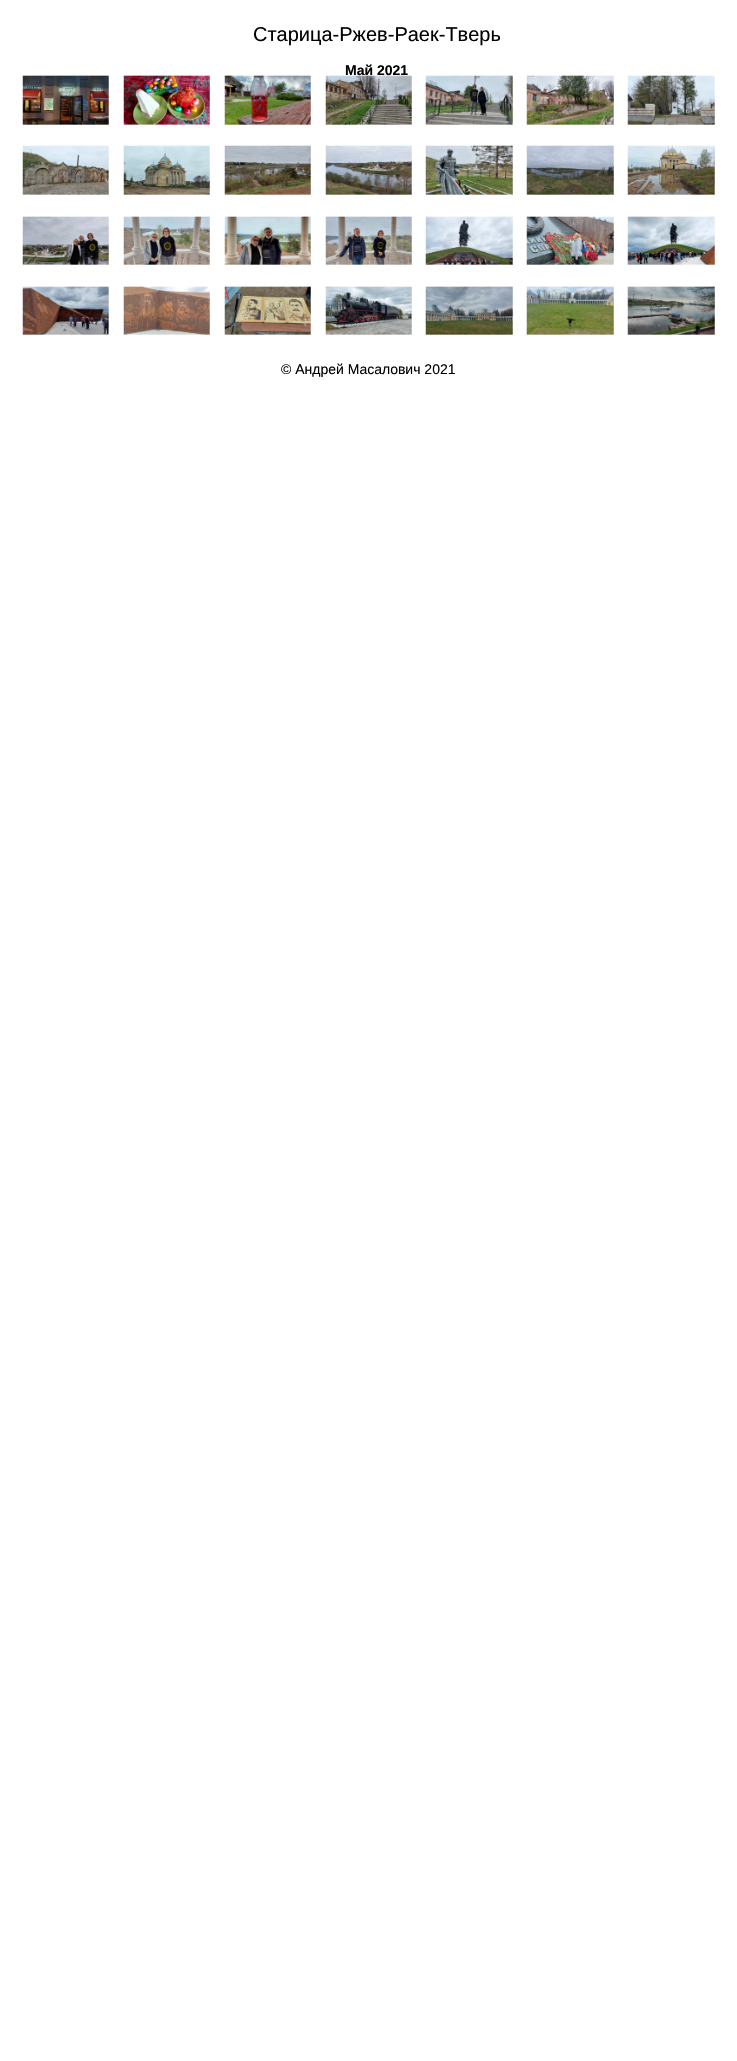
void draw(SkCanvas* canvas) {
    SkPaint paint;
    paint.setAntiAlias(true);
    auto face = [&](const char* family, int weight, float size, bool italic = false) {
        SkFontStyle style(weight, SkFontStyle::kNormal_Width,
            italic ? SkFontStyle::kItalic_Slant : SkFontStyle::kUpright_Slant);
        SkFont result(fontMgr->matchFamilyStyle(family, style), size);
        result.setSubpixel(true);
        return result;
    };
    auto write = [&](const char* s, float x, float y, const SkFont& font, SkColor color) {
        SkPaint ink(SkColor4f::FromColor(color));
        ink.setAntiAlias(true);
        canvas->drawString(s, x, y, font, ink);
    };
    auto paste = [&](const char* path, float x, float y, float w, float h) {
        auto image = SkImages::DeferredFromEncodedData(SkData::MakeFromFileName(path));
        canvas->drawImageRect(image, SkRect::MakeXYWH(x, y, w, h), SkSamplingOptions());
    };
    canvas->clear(SK_ColorWHITE);
    auto kFont1 = face("Liberation Sans", 400, 20);
    write("Старица-Ржев-Раек-Тверь", 253, 41, kFont1, SK_ColorBLACK);
    auto kFont2 = face("Liberation Sans", 700, 14);
    write("Май 2021", 345, 75, kFont2, SK_ColorBLACK);
    paste("pic1.png", 22, 75, 87, 50);
    paste("pic2.png", 123, 75, 87, 50);
    paste("pic3.png", 224, 75, 87, 50);
    paste("pic4.png", 325, 75, 87, 50);
    paste("pic5.png", 425, 75, 88, 50);
    paste("pic6.png", 526, 75, 88, 50);
    paste("pic7.png", 627, 75, 88, 50);
    paste("pic8.png", 22, 145, 87, 50);
    paste("pic9.png", 123, 145, 87, 50);
    paste("pic10.png", 224, 145, 87, 50);
    paste("pic11.png", 325, 145, 87, 50);
    paste("pic12.png", 425, 145, 88, 50);
    paste("pic13.png", 526, 145, 88, 50);
    paste("pic14.png", 627, 145, 88, 50);
    paste("pic15.png", 22, 216, 87, 49);
    paste("pic16.png", 123, 216, 87, 49);
    paste("pic17.png", 224, 216, 87, 49);
    paste("pic18.png", 325, 216, 87, 49);
    paste("pic19.png", 425, 216, 88, 49);
    paste("pic20.png", 526, 216, 88, 49);
    paste("pic21.png", 627, 216, 88, 49);
    paste("pic22.png", 22, 286, 87, 49);
    paste("pic23.png", 123, 286, 87, 49);
    paste("pic24.png", 224, 286, 87, 49);
    paste("pic25.png", 325, 286, 87, 49);
    paste("pic26.png", 425, 286, 88, 49);
    paste("pic27.png", 526, 286, 88, 49);
    paste("pic28.png", 627, 286, 88, 49);
    auto kFont3 = face("Liberation Sans", 400, 14);
    write("© Андрей Масалович 2021", 281, 374, kFont3, SK_ColorBLACK);
}
